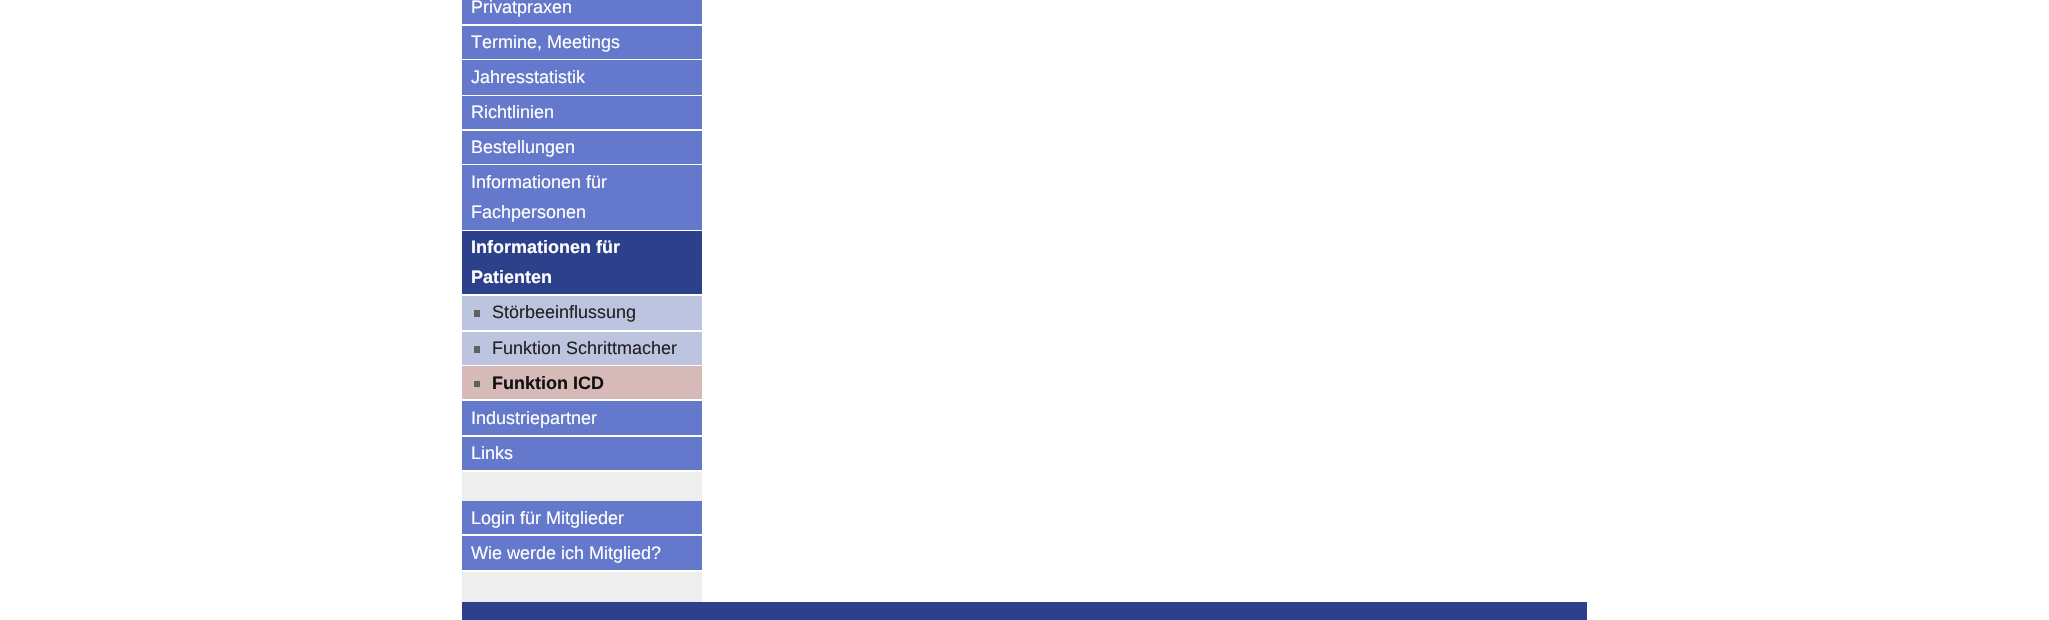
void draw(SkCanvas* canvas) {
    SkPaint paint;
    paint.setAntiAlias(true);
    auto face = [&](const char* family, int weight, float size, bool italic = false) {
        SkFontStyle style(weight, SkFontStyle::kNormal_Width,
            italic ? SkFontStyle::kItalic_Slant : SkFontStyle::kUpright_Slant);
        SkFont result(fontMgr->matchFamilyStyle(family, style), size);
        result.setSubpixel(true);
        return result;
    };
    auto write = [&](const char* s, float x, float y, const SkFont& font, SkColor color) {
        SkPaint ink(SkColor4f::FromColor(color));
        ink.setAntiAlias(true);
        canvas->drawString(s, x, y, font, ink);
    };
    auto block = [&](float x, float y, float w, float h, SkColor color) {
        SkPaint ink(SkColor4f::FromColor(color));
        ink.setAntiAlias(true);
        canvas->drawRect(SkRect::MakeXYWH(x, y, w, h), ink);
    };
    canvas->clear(SK_ColorWHITE);
    block(462, 472, 240, 130, SkColorSetRGB(238, 238, 238));
    block(462, 0, 240, 24, SkColorSetRGB(100, 121, 204));
    auto kFont1 = face("Liberation Sans", 400, 18);
    write("Privatpraxen", 471, 13, kFont1, SK_ColorWHITE);
    block(462, 26, 240, 33, SkColorSetRGB(100, 121, 204));
    write("Termine, Meetings", 471, 48, kFont1, SK_ColorWHITE);
    block(462, 60, 240, 35, SkColorSetRGB(100, 121, 204));
    write("Jahresstatistik", 471, 83, kFont1, SK_ColorWHITE);
    block(462, 96, 240, 33, SkColorSetRGB(100, 121, 204));
    write("Richtlinien", 471, 118, kFont1, SK_ColorWHITE);
    block(462, 131, 240, 33, SkColorSetRGB(100, 121, 204));
    write("Bestellungen", 471, 153, kFont1, SK_ColorWHITE);
    block(462, 165, 240, 65, SkColorSetRGB(100, 121, 204));
    write("Informationen für", 471, 188, kFont1, SK_ColorWHITE);
    write("Fachpersonen", 471, 218, kFont1, SK_ColorWHITE);
    block(462, 231, 240, 63, SkColorSetRGB(45, 64, 139));
    auto kFont2 = face("Liberation Sans", 700, 18);
    write("Informationen für", 471, 253, kFont2, SK_ColorWHITE);
    write("Patienten", 471, 283, kFont2, SK_ColorWHITE);
    block(462, 296, 240, 34, SkColorSetRGB(189, 196, 224));
    block(474, 310, 6, 7, SkColorSetRGB(96, 96, 96));
    write("Störbeeinflussung", 492, 318, kFont1, SkColorSetRGB(34, 34, 34));
    block(462, 332, 240, 33, SkColorSetRGB(189, 196, 224));
    block(474, 346, 6, 7, SkColorSetRGB(96, 96, 96));
    write("Funktion Schrittmacher", 492, 354, kFont1, SkColorSetRGB(34, 34, 34));
    block(462, 366, 240, 33, SkColorSetRGB(214, 186, 184));
    block(474, 381, 6, 6, SkColorSetRGB(96, 96, 96));
    write("Funktion ICD", 492, 389, kFont2, SkColorSetRGB(17, 17, 17));
    block(462, 401, 240, 34, SkColorSetRGB(100, 121, 204));
    write("Industriepartner", 471, 424, kFont1, SK_ColorWHITE);
    block(462, 437, 240, 33, SkColorSetRGB(100, 121, 204));
    write("Links", 471, 459, kFont1, SK_ColorWHITE);
    block(462, 501, 240, 33, SkColorSetRGB(100, 121, 204));
    block(462, 534, 240, 2, SK_ColorWHITE);
    write("Login für Mitglieder", 471, 524, kFont1, SK_ColorWHITE);
    block(462, 536, 240, 34, SkColorSetRGB(100, 121, 204));
    block(462, 570, 240, 2, SK_ColorWHITE);
    write("Wie werde ich Mitglied?", 471, 559, kFont1, SK_ColorWHITE);
    block(462, 602, 1125, 18, SkColorSetRGB(45, 64, 139));
}
